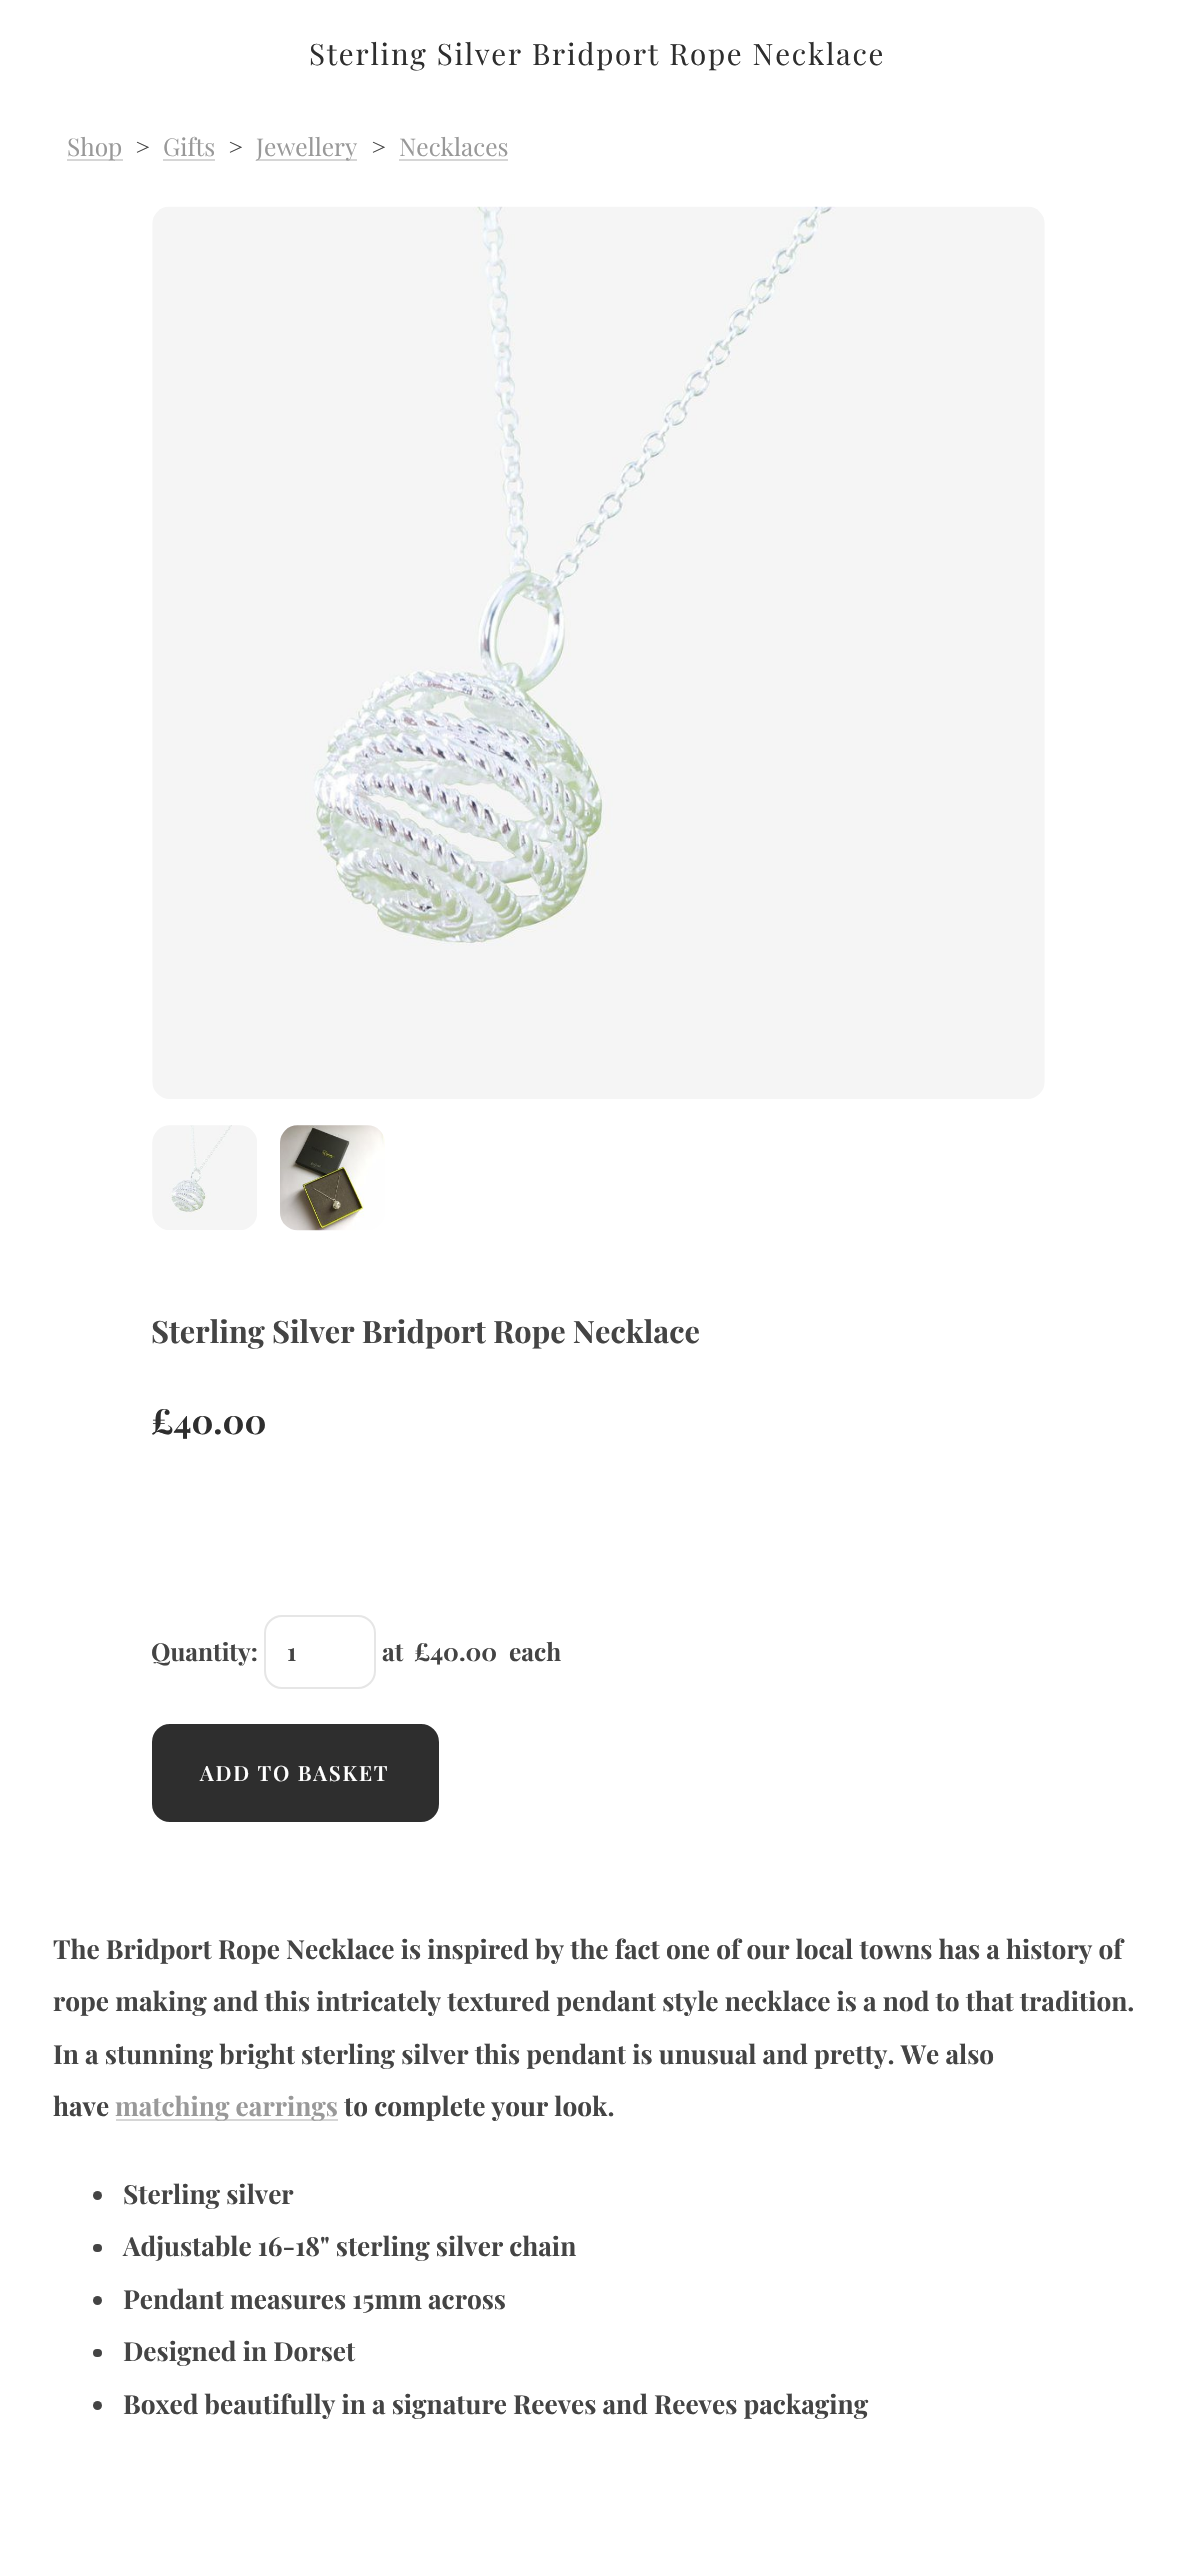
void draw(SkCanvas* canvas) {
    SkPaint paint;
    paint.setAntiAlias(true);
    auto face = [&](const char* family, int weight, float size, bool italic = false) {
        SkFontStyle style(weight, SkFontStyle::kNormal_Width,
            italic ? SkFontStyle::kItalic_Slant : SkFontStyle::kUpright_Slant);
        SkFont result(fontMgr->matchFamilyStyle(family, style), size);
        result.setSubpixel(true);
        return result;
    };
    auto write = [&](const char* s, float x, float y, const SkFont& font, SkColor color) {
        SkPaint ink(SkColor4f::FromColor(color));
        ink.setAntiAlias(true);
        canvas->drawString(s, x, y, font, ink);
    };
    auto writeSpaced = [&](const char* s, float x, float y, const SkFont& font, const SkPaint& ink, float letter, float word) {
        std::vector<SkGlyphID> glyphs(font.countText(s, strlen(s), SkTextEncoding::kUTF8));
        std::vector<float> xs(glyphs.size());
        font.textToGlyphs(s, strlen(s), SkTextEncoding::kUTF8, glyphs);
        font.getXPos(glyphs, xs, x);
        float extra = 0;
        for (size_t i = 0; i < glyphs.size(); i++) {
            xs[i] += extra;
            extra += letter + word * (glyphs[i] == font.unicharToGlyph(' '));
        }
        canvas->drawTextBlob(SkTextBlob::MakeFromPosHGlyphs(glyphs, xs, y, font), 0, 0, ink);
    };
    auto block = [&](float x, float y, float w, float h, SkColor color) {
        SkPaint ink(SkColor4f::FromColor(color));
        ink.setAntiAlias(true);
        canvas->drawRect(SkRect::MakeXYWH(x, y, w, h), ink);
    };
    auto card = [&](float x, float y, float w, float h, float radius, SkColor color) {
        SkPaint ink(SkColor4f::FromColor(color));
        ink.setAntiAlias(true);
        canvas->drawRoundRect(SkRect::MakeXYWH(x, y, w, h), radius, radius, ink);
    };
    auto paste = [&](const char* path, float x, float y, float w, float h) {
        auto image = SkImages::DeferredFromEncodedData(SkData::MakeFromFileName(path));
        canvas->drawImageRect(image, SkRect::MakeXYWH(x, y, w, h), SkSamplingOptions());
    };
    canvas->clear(SK_ColorWHITE);
    auto kFont1 = face("Playfair Display", 400, 29.5f);
    paint.setColor(SkColorSetRGB(46, 46, 46));
    writeSpaced("Sterling Silver Bridport Rope Necklace", 309, 65, kFont1, paint, 1.75f, 0);
    block(67, 159, 56, 2, SkColorSetRGB(214, 214, 214));
    auto kFont2 = face("Playfair Display", 400, 24.5f);
    write("Shop", 67, 156, kFont2, SkColorSetRGB(153, 153, 153));
    write(">", 135, 156, kFont2, SkColorSetRGB(68, 68, 68));
    write("Gifts", 163, 156, kFont2, SkColorSetRGB(153, 153, 153));
    block(163, 159, 52, 2, SkColorSetRGB(214, 214, 214));
    write(">", 228, 156, kFont2, SkColorSetRGB(68, 68, 68));
    block(256, 159, 101, 2, SkColorSetRGB(214, 214, 214));
    write("Jewellery", 256, 156, kFont2, SkColorSetRGB(153, 153, 153));
    write(">", 371, 156, kFont2, SkColorSetRGB(68, 68, 68));
    write("Necklaces", 399, 156, kFont2, SkColorSetRGB(153, 153, 153));
    block(399, 159, 109, 2, SkColorSetRGB(214, 214, 214));
    paste("pic1.png", 152, 206, 893, 893);
    paste("pic2.png", 152, 1125, 105, 105);
    paste("pic3.png", 280, 1125, 105, 106);
    auto kFont3 = face("Playfair Display", 700, 30.75f);
    write("Sterling Silver Bridport Rope Necklace", 151, 1343, kFont3, SkColorSetRGB(68, 68, 68));
    auto kFont4 = face("Playfair Display", 700, 34);
    write("£40.00", 151, 1434, kFont4, SkColorSetRGB(46, 46, 46));
    auto kFont5 = face("Playfair Display", 700, 24.5f);
    write("Quantity:", 151, 1661, kFont5, SkColorSetRGB(68, 68, 68));
    paint.setStyle(SkPaint::kStroke_Style);
    paint.setStrokeWidth(2);
    paint.setColor(SkColorSetRGB(230, 230, 230));
    canvas->drawRoundRect(SkRect::MakeXYWH(265, 1616, 110, 72), 17, 17, paint);
    write("1", 287, 1661, kFont5, SkColorSetRGB(68, 68, 68));
    write("at", 382, 1661, kFont5, SkColorSetRGB(68, 68, 68));
    write("£40.00", 414, 1661, kFont5, SkColorSetRGB(68, 68, 68));
    write("each", 509, 1661, kFont5, SkColorSetRGB(68, 68, 68));
    paint.setStyle(SkPaint::kFill_Style);
    paint.setColor(SkColorSetRGB(46, 46, 46));
    canvas->drawRoundRect(SkRect::MakeXYWH(154, 1726, 283, 94), 16, 16, paint);
    paint.setStyle(SkPaint::kStroke_Style);
    paint.setStrokeWidth(4);
    canvas->drawRoundRect(SkRect::MakeXYWH(154, 1726, 283, 94), 16, 16, paint);
    auto kFont6 = face("Playfair Display", 600, 21);
    paint.setStyle(SkPaint::kFill_Style);
    paint.setColor(SK_ColorWHITE);
    writeSpaced("ADD TO BASKET", 200, 1781, kFont6, paint, 1.75f, 0);
    auto kFont7 = face("Playfair Display", 700, 26.25f);
    write("The Bridport Rope Necklace is inspired by the fact one of our local towns has a history of", 53, 1959, kFont7, SkColorSetRGB(68, 68, 68));
    write("rope making and this intricately textured pendant style necklace is a nod to that tradition.", 53, 2011, kFont7, SkColorSetRGB(68, 68, 68));
    write("In a stunning bright sterling silver this pendant is unusual and pretty. We also", 53, 2064, kFont7, SkColorSetRGB(68, 68, 68));
    write("have", 53, 2116, kFont7, SkColorSetRGB(68, 68, 68));
    block(116, 2119, 222, 2, SkColorSetRGB(214, 214, 214));
    write("matching earrings", 115, 2116, kFont7, SkColorSetRGB(153, 153, 153));
    write("to complete your look.", 344, 2116, kFont7, SkColorSetRGB(68, 68, 68));
    paint.setColor(SkColorSetRGB(68, 68, 68));
    canvas->drawCircle(97.5f, 2195.5f, 4.5f, paint);
    write("Sterling silver", 123, 2204, kFont7, SkColorSetRGB(68, 68, 68));
    card(93, 2244, 9, 8, 4, SkColorSetRGB(68, 68, 68));
    write("Adjustable 16-18\" sterling silver chain", 123, 2256, kFont7, SkColorSetRGB(68, 68, 68));
    canvas->drawCircle(97.5f, 2300.5f, 4.5f, paint);
    write("Pendant measures 15mm across", 123, 2309, kFont7, SkColorSetRGB(68, 68, 68));
    card(93, 2349, 9, 8, 4, SkColorSetRGB(68, 68, 68));
    write("Designed in Dorset", 123, 2361, kFont7, SkColorSetRGB(68, 68, 68));
    canvas->drawCircle(97.5f, 2405.5f, 4.5f, paint);
    write("Boxed beautifully in a signature Reeves and Reeves packaging", 123, 2414, kFont7, SkColorSetRGB(68, 68, 68));
}
